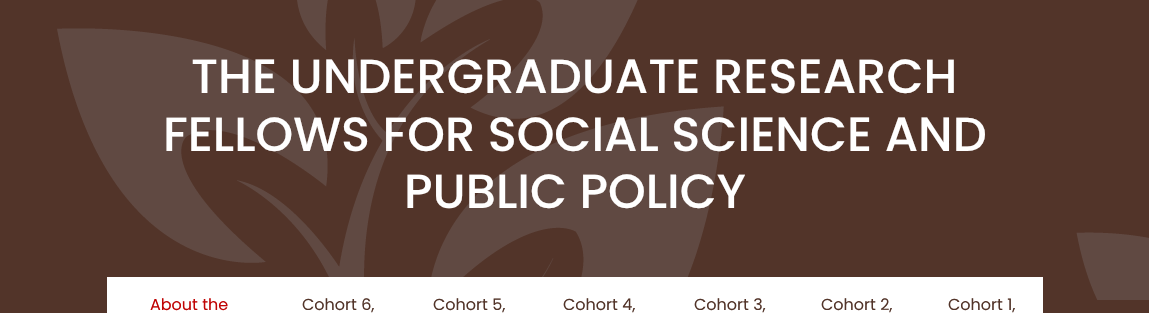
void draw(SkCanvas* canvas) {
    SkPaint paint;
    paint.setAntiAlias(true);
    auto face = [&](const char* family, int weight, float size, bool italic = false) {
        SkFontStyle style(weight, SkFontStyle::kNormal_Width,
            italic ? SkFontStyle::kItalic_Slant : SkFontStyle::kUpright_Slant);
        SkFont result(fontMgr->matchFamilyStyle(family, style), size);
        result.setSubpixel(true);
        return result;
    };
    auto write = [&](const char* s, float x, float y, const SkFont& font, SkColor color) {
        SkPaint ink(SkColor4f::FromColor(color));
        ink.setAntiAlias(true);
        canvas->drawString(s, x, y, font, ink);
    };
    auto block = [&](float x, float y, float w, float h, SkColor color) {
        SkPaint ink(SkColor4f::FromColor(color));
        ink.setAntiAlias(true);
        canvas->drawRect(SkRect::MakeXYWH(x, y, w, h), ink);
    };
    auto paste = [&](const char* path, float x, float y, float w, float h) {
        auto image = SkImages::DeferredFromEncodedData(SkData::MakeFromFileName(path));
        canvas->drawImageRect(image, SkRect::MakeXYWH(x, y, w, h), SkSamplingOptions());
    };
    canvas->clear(SkColorSetRGB(82, 52, 41));
    paste("pic1.png", 57, 0, 1092, 300);
    auto kFont1 = face("Poppins", 500, 48);
    write("THE UNDERGRADUATE RESEARCH", 191, 93, kFont1, SK_ColorWHITE);
    write("FELLOWS FOR SOCIAL SCIENCE AND", 163, 151, kFont1, SK_ColorWHITE);
    write("PUBLIC POLICY", 404, 208, kFont1, SK_ColorWHITE);
    block(107, 277, 936, 36, SK_ColorWHITE);
    auto kFont2 = face("Poppins", 400, 16);
    write("About the", 150, 310, kFont2, SkColorSetRGB(192, 4, 4));
    write("Cohort 6,", 302, 310, kFont2, SkColorSetRGB(82, 52, 41));
    write("Cohort 5,", 433, 310, kFont2, SkColorSetRGB(82, 52, 41));
    write("Cohort 4,", 563, 310, kFont2, SkColorSetRGB(82, 52, 41));
    write("Cohort 3,", 694, 310, kFont2, SkColorSetRGB(82, 52, 41));
    write("Cohort 2,", 821, 310, kFont2, SkColorSetRGB(82, 52, 41));
    write("Cohort 1,", 948, 310, kFont2, SkColorSetRGB(82, 52, 41));
}
